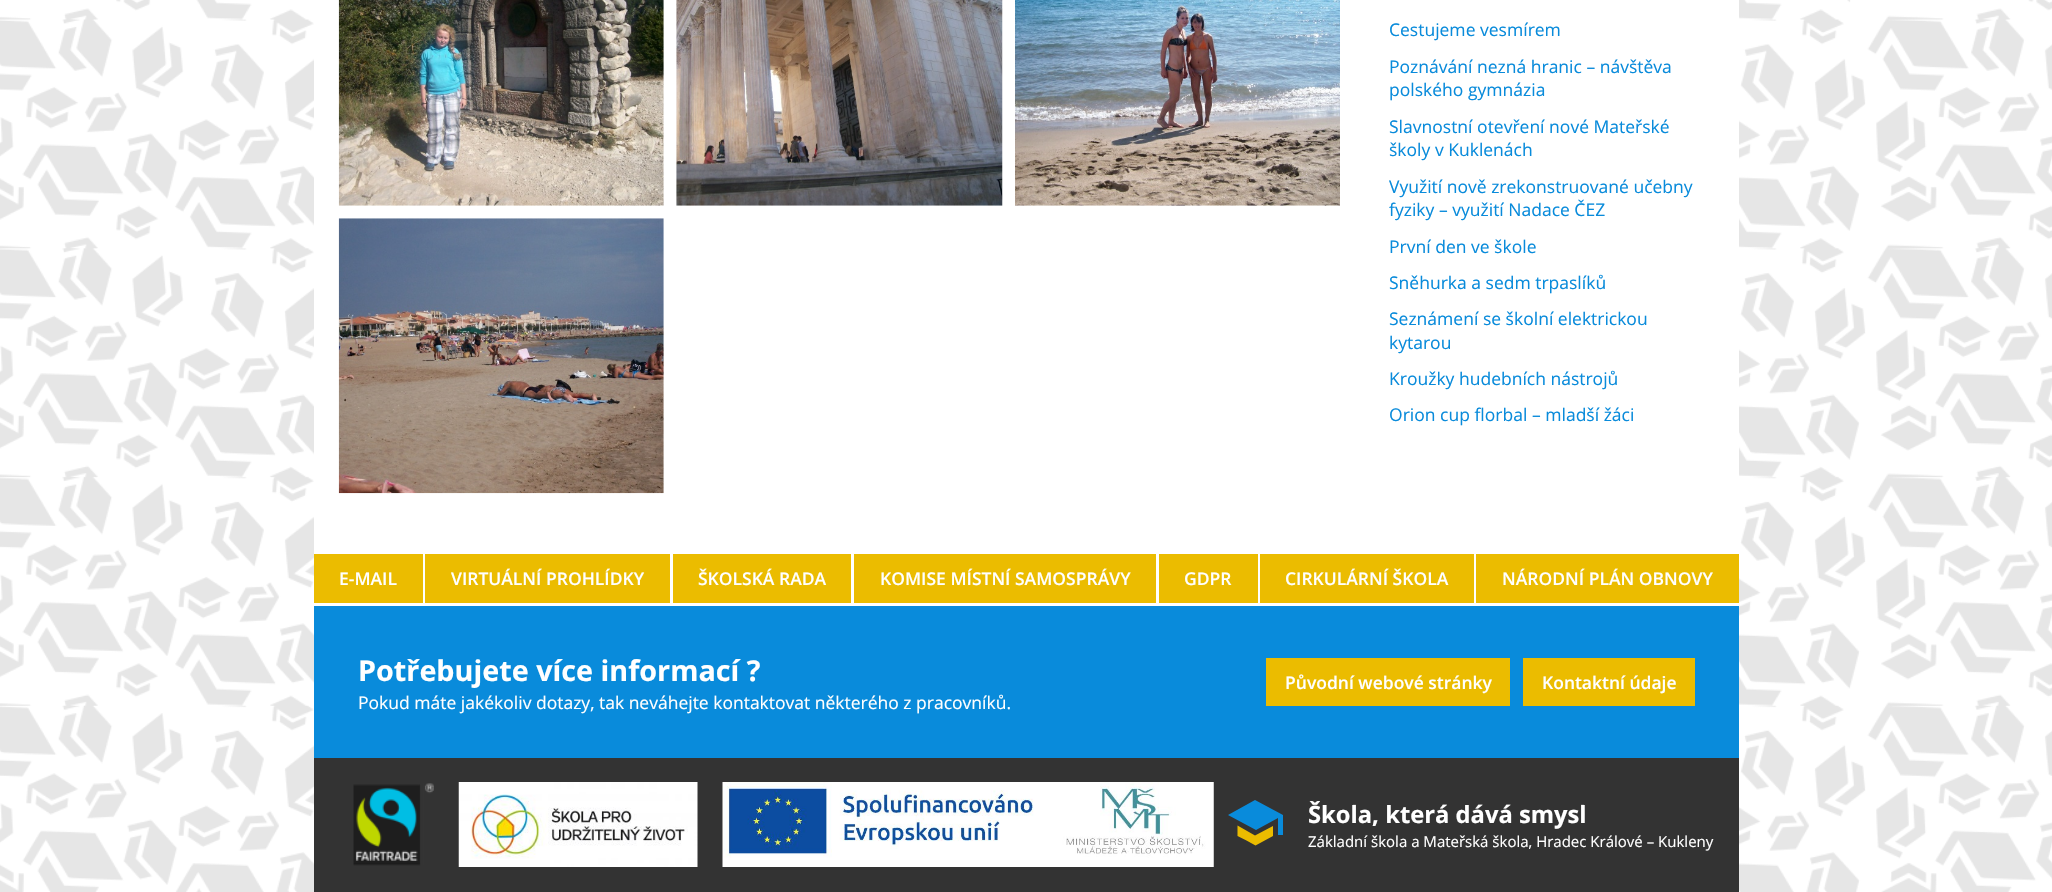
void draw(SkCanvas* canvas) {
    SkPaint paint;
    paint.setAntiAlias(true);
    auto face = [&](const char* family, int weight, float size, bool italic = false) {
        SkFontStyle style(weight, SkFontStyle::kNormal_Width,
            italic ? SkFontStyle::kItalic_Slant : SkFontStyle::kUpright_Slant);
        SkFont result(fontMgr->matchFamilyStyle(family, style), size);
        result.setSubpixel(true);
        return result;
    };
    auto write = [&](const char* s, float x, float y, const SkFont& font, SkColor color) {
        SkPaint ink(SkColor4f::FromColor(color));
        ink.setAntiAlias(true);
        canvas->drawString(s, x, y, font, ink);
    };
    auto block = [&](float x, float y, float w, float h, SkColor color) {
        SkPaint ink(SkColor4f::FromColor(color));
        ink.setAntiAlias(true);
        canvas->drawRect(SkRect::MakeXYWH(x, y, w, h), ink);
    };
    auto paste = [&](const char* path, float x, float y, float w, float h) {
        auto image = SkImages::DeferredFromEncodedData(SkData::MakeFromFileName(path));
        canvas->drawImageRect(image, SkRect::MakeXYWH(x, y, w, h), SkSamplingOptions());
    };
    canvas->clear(SK_ColorWHITE);
    paste("pic1.png", 0, 0, 2052, 892);
    block(314, 0, 1425, 606, SK_ColorWHITE);
    paste("pic2.png", 338, 0, 326, 206);
    paste("pic3.png", 676, 0, 327, 206);
    paste("pic4.png", 1015, 0, 325, 206);
    paste("pic5.png", 338, 218, 326, 276);
    auto kFont1 = face("Open Sans", 400, 17.5f);
    write("Cestujeme vesmírem", 1389, 36, kFont1, SkColorSetRGB(9, 139, 219));
    write("Poznávání nezná hranic – návštěva", 1389, 73, kFont1, SkColorSetRGB(9, 139, 219));
    write("polského gymnázia", 1389, 96, kFont1, SkColorSetRGB(9, 139, 219));
    write("Slavnostní otevření nové Mateřské", 1389, 133, kFont1, SkColorSetRGB(9, 139, 219));
    write("školy v Kuklenách", 1389, 156, kFont1, SkColorSetRGB(9, 139, 219));
    write("Využití nově zrekonstruované učebny", 1389, 193, kFont1, SkColorSetRGB(9, 139, 219));
    write("fyziky – využití Nadace ČEZ", 1389, 216, kFont1, SkColorSetRGB(9, 139, 219));
    write("První den ve škole", 1389, 253, kFont1, SkColorSetRGB(9, 139, 219));
    write("Sněhurka a sedm trpaslíků", 1389, 289, kFont1, SkColorSetRGB(9, 139, 219));
    write("Seznámení se školní elektrickou", 1389, 325, kFont1, SkColorSetRGB(9, 139, 219));
    write("kytarou", 1389, 349, kFont1, SkColorSetRGB(9, 139, 219));
    write("Kroužky hudebních nástrojů", 1389, 385, kFont1, SkColorSetRGB(9, 139, 219));
    write("Orion cup florbal – mladší žáci", 1389, 421, kFont1, SkColorSetRGB(9, 139, 219));
    block(314, 554, 109, 49, SkColorSetRGB(235, 188, 0));
    auto kFont2 = face("Open Sans", 600, 17.5f);
    write("E-MAIL", 339, 585, kFont2, SK_ColorWHITE);
    block(425, 554, 245, 49, SkColorSetRGB(235, 188, 0));
    write("VIRTUÁLNÍ PROHLÍDKY", 451, 585, kFont2, SK_ColorWHITE);
    block(673, 554, 178, 49, SkColorSetRGB(235, 188, 0));
    write("ŠKOLSKÁ RADA", 698, 585, kFont2, SK_ColorWHITE);
    block(854, 554, 302, 49, SkColorSetRGB(235, 188, 0));
    write("KOMISE MÍSTNÍ SAMOSPRÁVY", 880, 585, kFont2, SK_ColorWHITE);
    block(1159, 554, 99, 49, SkColorSetRGB(235, 188, 0));
    write("GDPR", 1184, 585, kFont2, SK_ColorWHITE);
    block(1260, 554, 214, 49, SkColorSetRGB(235, 188, 0));
    write("CIRKULÁRNÍ ŠKOLA", 1285, 585, kFont2, SK_ColorWHITE);
    block(1476, 554, 263, 49, SkColorSetRGB(235, 188, 0));
    write("NÁRODNÍ PLÁN OBNOVY", 1502, 585, kFont2, SK_ColorWHITE);
    block(314, 606, 1425, 152, SkColorSetRGB(9, 139, 219));
    auto kFont3 = face("Open Sans", 700, 28.75f);
    write("Potřebujete více informací ?", 358, 681, kFont3, SK_ColorWHITE);
    write("Pokud máte jakékoliv dotazy, tak neváhejte kontaktovat některého z pracovníků.", 358, 709, kFont1, SK_ColorWHITE);
    block(1266, 658, 244, 48, SkColorSetRGB(235, 188, 0));
    write("Původní webové stránky", 1285, 689, kFont2, SK_ColorWHITE);
    block(1523, 658, 172, 48, SkColorSetRGB(235, 188, 0));
    write("Kontaktní údaje", 1542, 689, kFont2, SK_ColorWHITE);
    block(314, 758, 1425, 134, SkColorSetRGB(51, 51, 51));
    paste("pic6.png", 353, 783, 81, 83);
    paste("pic7.png", 458, 782, 240, 85);
    paste("pic8.png", 722, 782, 492, 85);
    paint.setColor(SkColorSetRGB(235, 188, 0));
    canvas->drawPath(SkPathBuilder().moveTo(1246.5f, 840.5f).lineTo(1237.5f, 836).lineTo(1237.5f, 825.5f).lineTo(1255, 835.5f).lineTo(1273, 826).lineTo(1273, 836).lineTo(1255.5f, 845.5f).close().detach(), paint);
    paint.setColor(SkColorSetRGB(9, 139, 219));
    canvas->drawPath(SkPathBuilder().moveTo(1278, 827).lineTo(1278, 818).lineTo(1256, 830).lineTo(1228, 815).lineTo(1255, 800).lineTo(1283, 815).lineTo(1283, 835).lineTo(1278, 835).close().detach(), paint);
    auto kFont4 = face("Open Sans", 700, 23.75f);
    write("Škola, která dává smysl", 1308, 823, kFont4, SK_ColorWHITE);
    auto kFont5 = face("Open Sans", 400, 15);
    write("Základní škola a Mateřská škola, Hradec Králové – Kukleny", 1308, 847, kFont5, SK_ColorWHITE);
}
